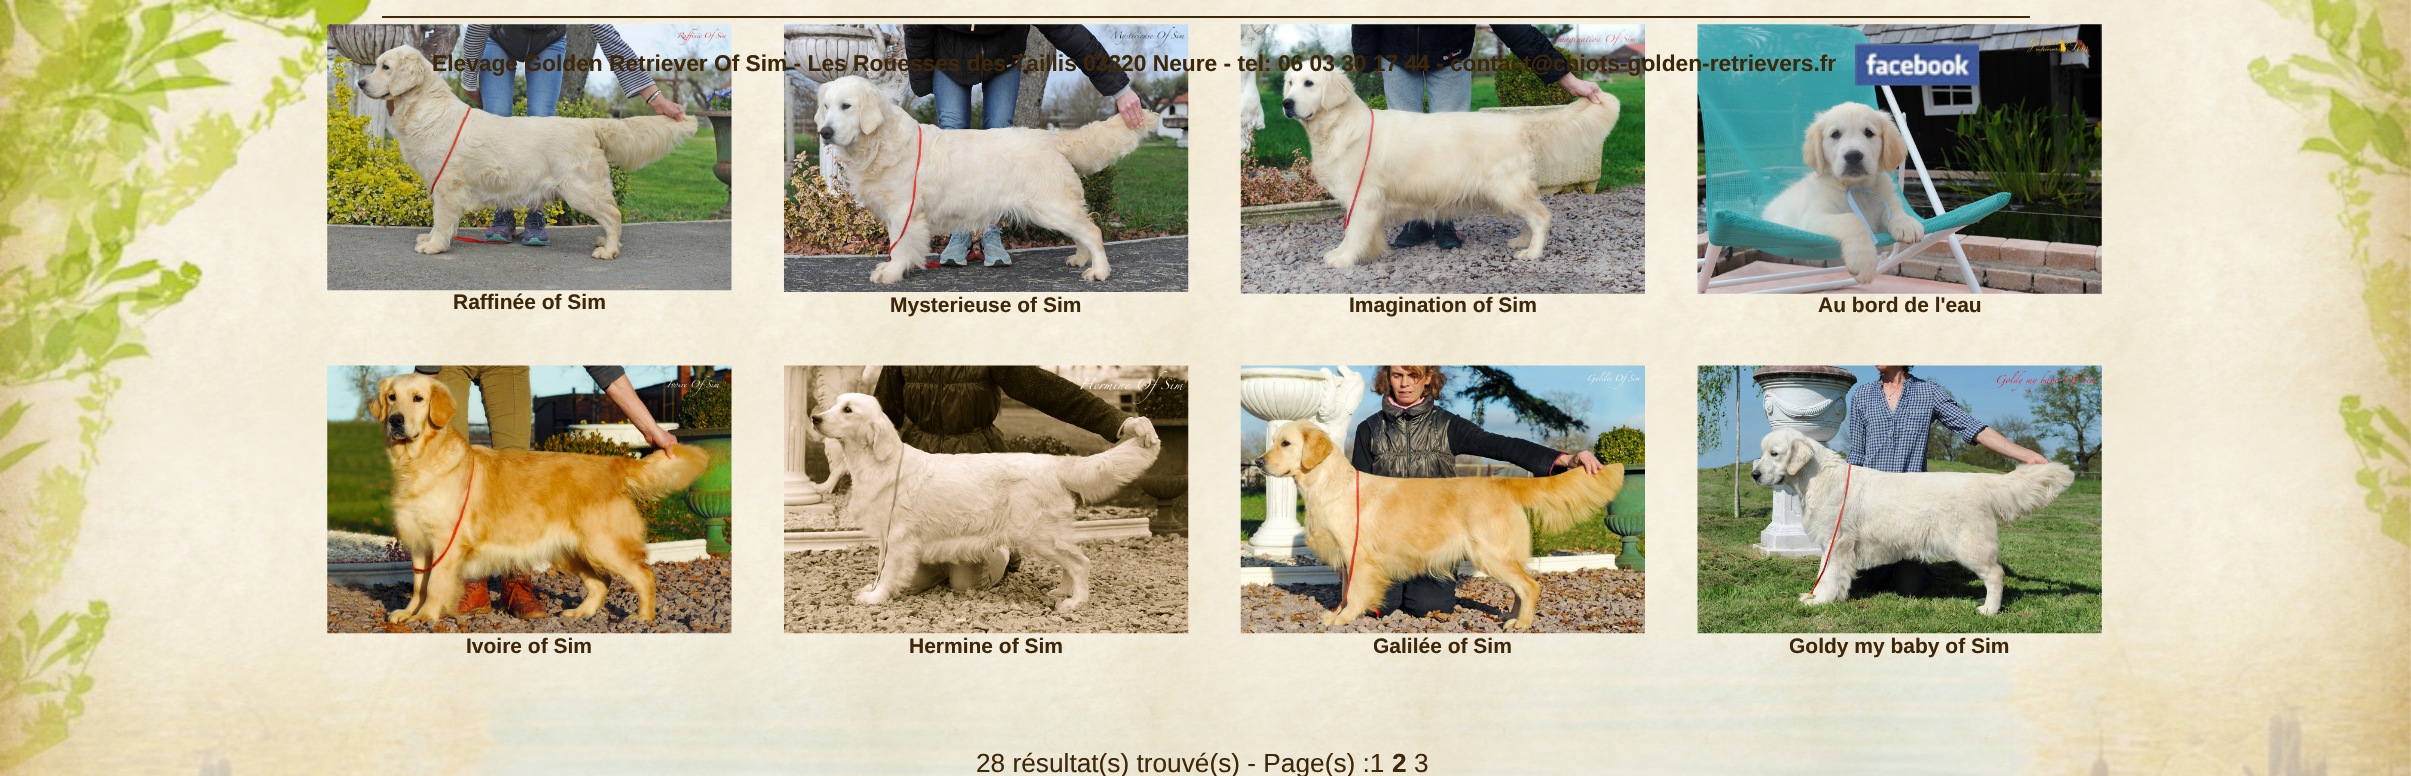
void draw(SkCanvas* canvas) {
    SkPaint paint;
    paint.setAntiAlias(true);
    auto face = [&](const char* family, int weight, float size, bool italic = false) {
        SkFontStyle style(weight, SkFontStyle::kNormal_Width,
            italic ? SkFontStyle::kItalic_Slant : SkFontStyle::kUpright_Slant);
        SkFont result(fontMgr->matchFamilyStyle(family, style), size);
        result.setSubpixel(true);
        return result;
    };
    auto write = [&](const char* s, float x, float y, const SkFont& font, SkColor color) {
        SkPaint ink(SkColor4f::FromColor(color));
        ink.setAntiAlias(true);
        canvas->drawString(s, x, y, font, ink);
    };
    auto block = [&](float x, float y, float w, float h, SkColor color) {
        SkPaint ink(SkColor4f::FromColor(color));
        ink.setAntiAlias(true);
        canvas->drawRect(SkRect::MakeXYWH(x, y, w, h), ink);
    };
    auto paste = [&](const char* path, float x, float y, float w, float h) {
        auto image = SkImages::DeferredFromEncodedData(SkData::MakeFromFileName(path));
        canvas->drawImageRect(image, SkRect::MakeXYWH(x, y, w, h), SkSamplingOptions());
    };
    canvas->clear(SK_ColorWHITE);
    paste("pic1.png", 0, 0, 2411, 776);
    block(382, 16, 1648, 2, SkColorSetRGB(62, 39, 8));
    paste("pic3.png", 327, 24, 405, 267);
    paste("pic4.png", 784, 24, 405, 268);
    paste("pic5.png", 1240, 24, 405, 270);
    paste("pic6.png", 1697, 24, 405, 270);
    auto kFont1 = face("Liberation Sans", 700, 22.75f);
    write("Elevage Golden Retriever Of Sim - Les Rouesses des Taillis 03320 Neure - tel: 06 03 30 17 44 - contact@chiots-golden-retrievers.fr", 432, 71, kFont1, SkColorSetRGB(62, 39, 8));
    paste("pic2.png", 1855, 43, 125, 43);
    auto kFont2 = face("Liberation Sans", 700, 21);
    write("Raffinée of Sim", 453, 309, kFont2, SkColorSetRGB(62, 39, 8));
    write("Mysterieuse of Sim", 890, 312, kFont2, SkColorSetRGB(62, 39, 8));
    write("Imagination of Sim", 1349, 312, kFont2, SkColorSetRGB(62, 39, 8));
    write("Au bord de l'eau", 1818, 312, kFont2, SkColorSetRGB(62, 39, 8));
    paste("pic7.png", 327, 365, 405, 269);
    write("Ivoire of Sim", 466, 653, kFont2, SkColorSetRGB(62, 39, 8));
    paste("pic8.png", 784, 365, 405, 269);
    write("Hermine of Sim", 909, 653, kFont2, SkColorSetRGB(62, 39, 8));
    paste("pic9.png", 1240, 365, 405, 269);
    write("Galilée of Sim", 1373, 653, kFont2, SkColorSetRGB(62, 39, 8));
    paste("pic10.png", 1697, 365, 405, 269);
    write("Goldy my baby of Sim", 1789, 653, kFont2, SkColorSetRGB(62, 39, 8));
    auto kFont3 = face("Liberation Sans", 400, 26.25f);
    write("28 résultat(s) trouvé(s) - Page(s) :1", 976, 772, kFont3, SkColorSetRGB(62, 39, 8));
    auto kFont4 = face("Liberation Sans", 700, 26.25f);
    write("2", 1392, 772, kFont4, SkColorSetRGB(62, 39, 8));
    write("3", 1414, 772, kFont3, SkColorSetRGB(62, 39, 8));
}
